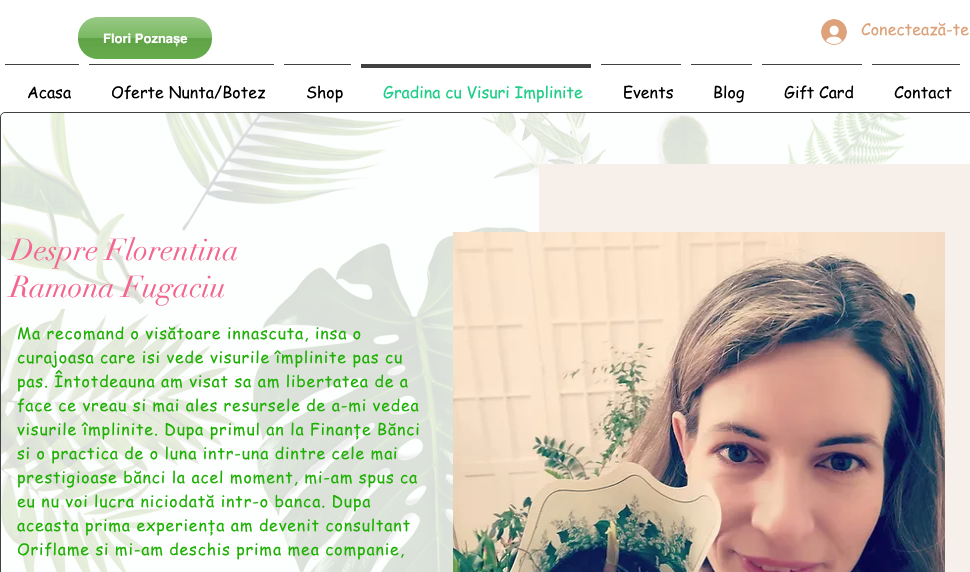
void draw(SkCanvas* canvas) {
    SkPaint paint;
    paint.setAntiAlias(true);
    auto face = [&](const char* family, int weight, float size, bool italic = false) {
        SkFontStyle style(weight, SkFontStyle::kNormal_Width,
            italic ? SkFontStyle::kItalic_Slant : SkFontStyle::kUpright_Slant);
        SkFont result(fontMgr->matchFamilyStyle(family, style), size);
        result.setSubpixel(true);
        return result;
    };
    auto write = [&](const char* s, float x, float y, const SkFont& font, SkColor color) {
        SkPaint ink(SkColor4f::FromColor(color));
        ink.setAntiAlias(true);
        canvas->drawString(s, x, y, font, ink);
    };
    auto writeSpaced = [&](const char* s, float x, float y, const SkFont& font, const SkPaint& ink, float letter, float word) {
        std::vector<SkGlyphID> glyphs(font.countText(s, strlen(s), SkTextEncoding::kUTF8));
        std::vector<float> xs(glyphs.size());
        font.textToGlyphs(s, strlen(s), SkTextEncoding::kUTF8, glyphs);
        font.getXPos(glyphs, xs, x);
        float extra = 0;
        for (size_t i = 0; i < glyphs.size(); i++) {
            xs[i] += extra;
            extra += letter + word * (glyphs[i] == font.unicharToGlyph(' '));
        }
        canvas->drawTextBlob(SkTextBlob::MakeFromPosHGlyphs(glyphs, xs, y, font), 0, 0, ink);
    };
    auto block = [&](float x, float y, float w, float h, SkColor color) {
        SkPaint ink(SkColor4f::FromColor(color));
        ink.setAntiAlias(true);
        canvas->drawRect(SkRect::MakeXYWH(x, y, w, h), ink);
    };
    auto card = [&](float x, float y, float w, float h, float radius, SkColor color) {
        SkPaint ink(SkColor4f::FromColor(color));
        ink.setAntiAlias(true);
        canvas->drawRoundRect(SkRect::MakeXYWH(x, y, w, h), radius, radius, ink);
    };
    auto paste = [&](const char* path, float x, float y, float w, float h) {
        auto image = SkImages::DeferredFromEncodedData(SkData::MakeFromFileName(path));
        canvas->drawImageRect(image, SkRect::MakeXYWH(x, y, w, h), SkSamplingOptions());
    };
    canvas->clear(SkColorSetRGB(241, 255, 246));
    block(0, 0, 970, 112, SK_ColorWHITE);
    paste("pic1.png", 821, 19, 26, 26);
    auto kFont1 = face("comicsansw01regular", 400, 16);
    write("Conectează-te", 861, 35, kFont1, SkColorSetRGB(222, 162, 122));
    block(5, 64, 74, 1, SkColorSetRGB(65, 65, 65));
    write("Acasa", 27, 98, kFont1, SK_ColorBLACK);
    block(89, 64, 185, 1, SkColorSetRGB(65, 65, 65));
    write("Oferte Nunta/Botez", 111, 98, kFont1, SK_ColorBLACK);
    block(284, 64, 67, 1, SkColorSetRGB(65, 65, 65));
    write("Shop", 306, 98, kFont1, SK_ColorBLACK);
    block(361, 64, 230, 4, SkColorSetRGB(65, 65, 65));
    write("Gradina cu Visuri Implinite", 383, 98, kFont1, SkColorSetRGB(32, 206, 136));
    block(601, 64, 80, 1, SkColorSetRGB(65, 65, 65));
    write("Events", 623, 98, kFont1, SK_ColorBLACK);
    block(691, 64, 61, 1, SkColorSetRGB(65, 65, 65));
    write("Blog", 713, 98, kFont1, SK_ColorBLACK);
    block(762, 64, 100, 1, SkColorSetRGB(65, 65, 65));
    write("Gift Card", 784, 98, kFont1, SK_ColorBLACK);
    block(872, 64, 88, 1, SkColorSetRGB(65, 65, 65));
    write("Contact", 894, 98, kFont1, SK_ColorBLACK);
    card(78, 17, 134, 42, 20, SkColorSetRGB(104, 176, 77));
    paste("pic2.png", 78, 17, 134, 42);
    auto kFont2 = face("helvetica", 700, 13);
    write("Flori Poznașe", 103, 43, kFont2, SK_ColorWHITE);
    paste("pic4.png", 1, 113, 911, 459);
    paint.setColor(SkColorSetARGB(217, 255, 255, 255));
    canvas->drawRoundRect(SkRect::MakeXYWH(0.5f, 112.5f, 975, 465), 4.5f, 4.5f, paint);
    paint.setStyle(SkPaint::kStroke_Style);
    paint.setStrokeWidth(1);
    paint.setColor(SkColorSetRGB(65, 65, 65));
    canvas->drawRoundRect(SkRect::MakeXYWH(0.5f, 112.5f, 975, 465), 4.5f, 4.5f, paint);
    block(539, 164, 431, 408, SkColorSetRGB(247, 239, 233));
    auto kFont3 = face("didot", 400, 30);
    write("Despre Florentina", 10, 260, kFont3, SkColorSetRGB(244, 100, 142));
    write("Ramona Fugaciu", 10, 297, kFont3, SkColorSetRGB(244, 100, 142));
    paste("pic3.png", 453, 232, 492, 340);
    paint.setStyle(SkPaint::kFill_Style);
    paint.setColor(SkColorSetRGB(31, 176, 5));
    writeSpaced("Ma recomand o visătoare innascuta, insa o", 17, 339, kFont1, paint, 0.8f, 0);
    writeSpaced("curajoasa care isi vede visurile împlinite pas cu", 17, 363, kFont1, paint, 0.8f, 0);
    writeSpaced("pas. Întotdeauna am visat sa am libertatea de a", 17, 387, kFont1, paint, 0.8f, 0);
    writeSpaced("face ce vreau si mai ales resursele de a-mi vedea", 17, 411, kFont1, paint, 0.8f, 0);
    writeSpaced("visurile împlinite. Dupa primul an la Finanțe Bănci", 17, 435, kFont1, paint, 0.8f, 0);
    writeSpaced("si o practica de o luna intr-una dintre cele mai", 17, 459, kFont1, paint, 0.8f, 0);
    writeSpaced("prestigioase bănci la acel moment, mi-am spus ca", 17, 483, kFont1, paint, 0.8f, 0);
    writeSpaced("eu nu voi lucra niciodată intr-o banca. Dupa", 17, 507, kFont1, paint, 0.8f, 0);
    writeSpaced("aceasta prima experiența am devenit consultant", 17, 531, kFont1, paint, 0.8f, 0);
    writeSpaced("Oriflame si mi-am deschis prima mea companie,", 17, 555, kFont1, paint, 0.8f, 0);
}
